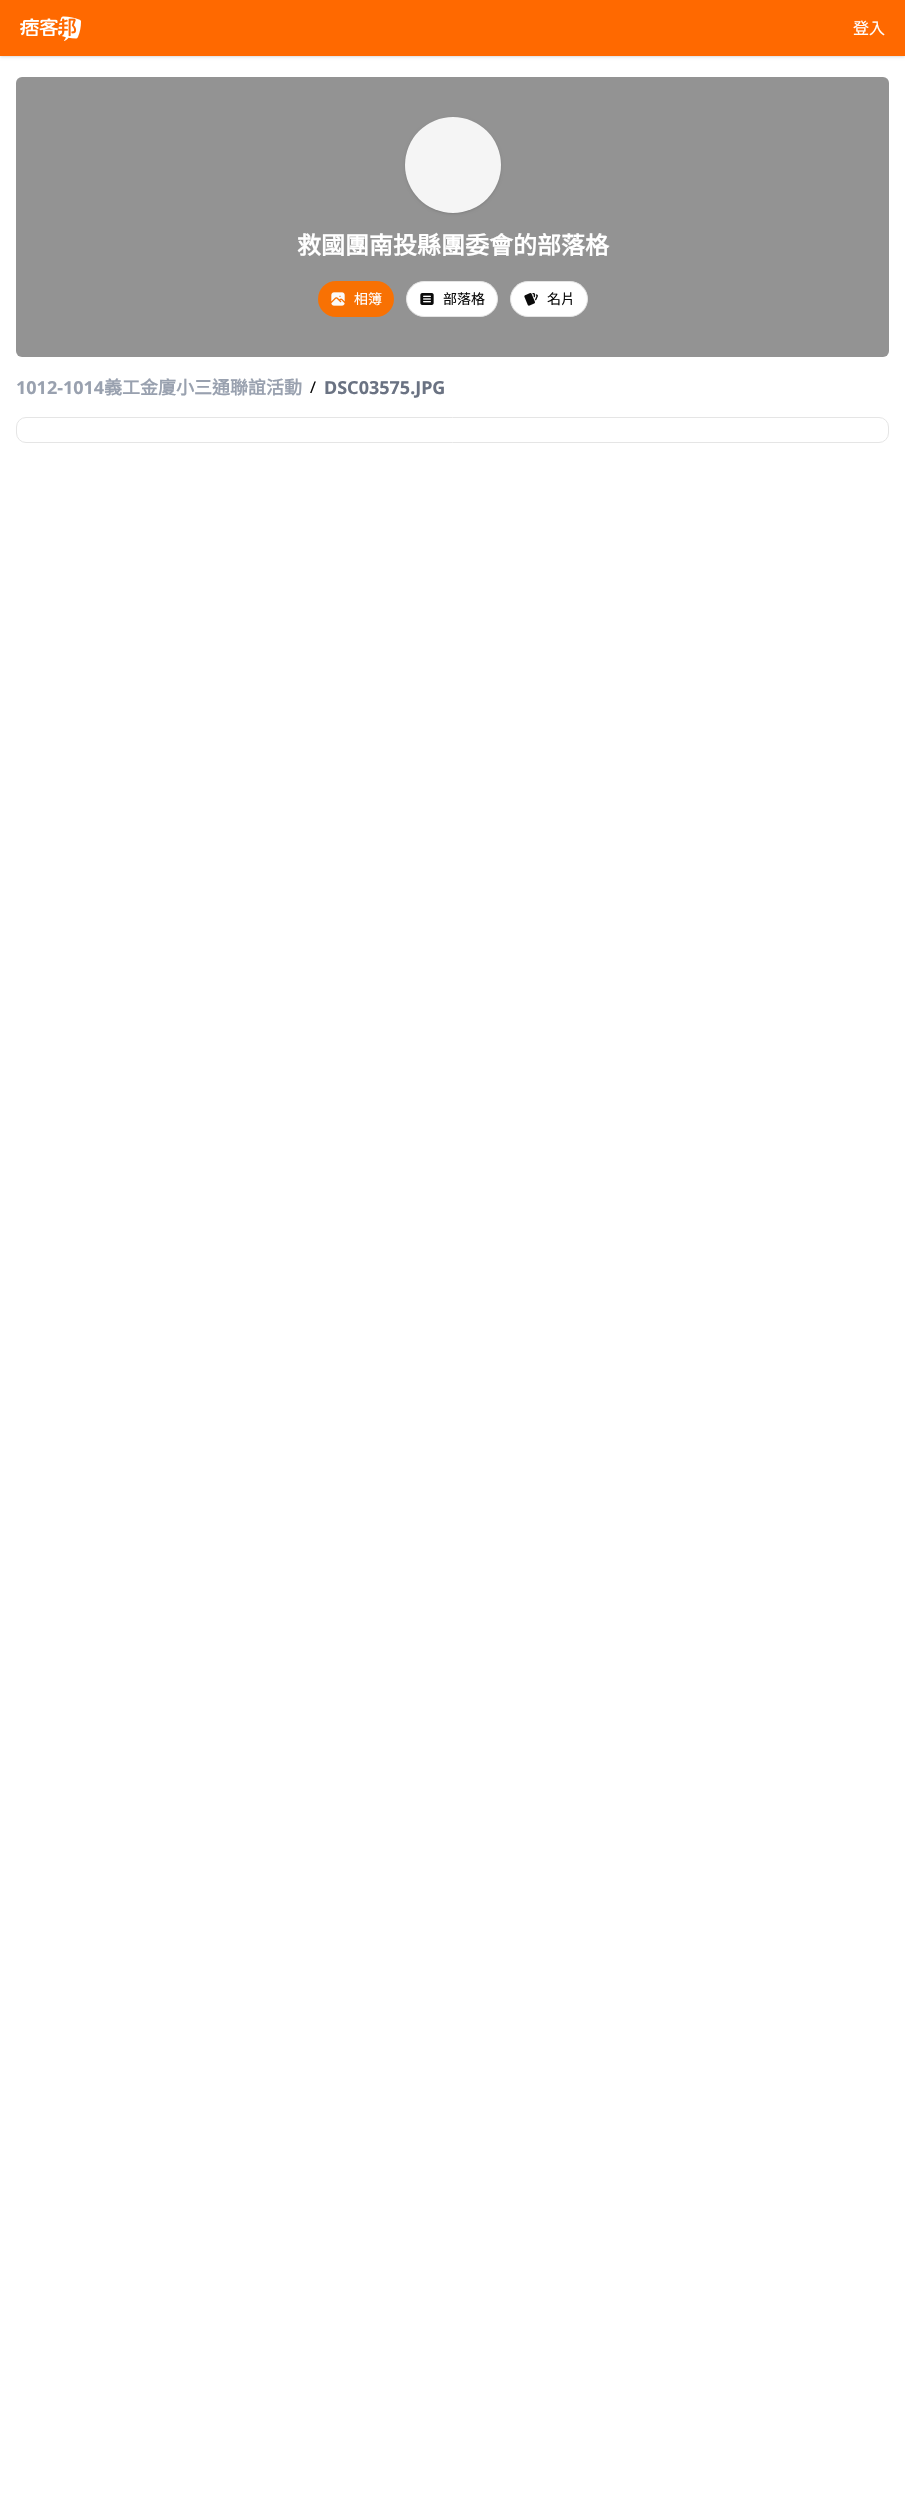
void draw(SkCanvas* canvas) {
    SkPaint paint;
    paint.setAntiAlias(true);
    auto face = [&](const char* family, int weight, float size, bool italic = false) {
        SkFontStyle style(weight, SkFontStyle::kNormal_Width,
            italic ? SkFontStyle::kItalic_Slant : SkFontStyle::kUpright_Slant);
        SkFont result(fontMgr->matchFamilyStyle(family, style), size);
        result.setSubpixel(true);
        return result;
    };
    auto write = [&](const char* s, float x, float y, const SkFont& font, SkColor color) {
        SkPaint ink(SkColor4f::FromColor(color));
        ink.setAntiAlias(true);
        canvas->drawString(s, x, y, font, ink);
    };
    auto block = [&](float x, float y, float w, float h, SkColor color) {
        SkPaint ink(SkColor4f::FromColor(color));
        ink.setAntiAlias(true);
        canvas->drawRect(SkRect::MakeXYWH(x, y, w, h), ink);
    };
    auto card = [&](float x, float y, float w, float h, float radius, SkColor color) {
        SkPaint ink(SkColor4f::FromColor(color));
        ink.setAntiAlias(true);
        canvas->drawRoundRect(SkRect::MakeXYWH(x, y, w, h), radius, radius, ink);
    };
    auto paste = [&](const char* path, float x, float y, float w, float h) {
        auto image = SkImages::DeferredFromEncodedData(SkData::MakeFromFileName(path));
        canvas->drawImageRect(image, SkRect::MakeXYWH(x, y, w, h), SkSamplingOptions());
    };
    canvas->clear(SK_ColorWHITE);
    paint.setColor(SkColorSetARGB(26, 0, 0, 0));
    paint.setMaskFilter(SkMaskFilter::MakeBlur(kNormal_SkBlurStyle, 1));
    canvas->drawRect(SkRect::MakeXYWH(1, 2, 903, 54), paint);
    paint.setMaskFilter(nullptr);
    paint.setMaskFilter(SkMaskFilter::MakeBlur(kNormal_SkBlurStyle, 1.5f));
    canvas->drawRect(SkRect::MakeXYWH(0, 1, 905, 56), paint);
    paint.setMaskFilter(nullptr);
    block(0, 0, 905, 56, SkColorSetRGB(255, 105, 0));
    paste("pic1.png", 20, 16, 61, 25);
    auto kFont1 = face("Noto Sans CJK TC", 400, 16);
    write("登入", 853, 34, kFont1, SK_ColorWHITE);
    card(16, 77, 873, 280, 6, SkColorSetRGB(147, 147, 147));
    paint.setMaskFilter(SkMaskFilter::MakeBlur(kNormal_SkBlurStyle, 1));
    canvas->drawRoundRect(SkRect::MakeXYWH(406, 119, 94, 94), 47, 47, paint);
    paint.setMaskFilter(nullptr);
    paint.setMaskFilter(SkMaskFilter::MakeBlur(kNormal_SkBlurStyle, 1.5f));
    canvas->drawRoundRect(SkRect::MakeXYWH(405, 118, 96, 96), 48, 48, paint);
    paint.setMaskFilter(nullptr);
    paint.setColor(SkColorSetRGB(245, 245, 245));
    canvas->drawCircle(453, 165, 48, paint);
    auto kFont2 = face("Noto Sans CJK TC", 700, 24);
    write("救國團南投縣團委會的部落格", 297, 254, kFont2, SK_ColorWHITE);
    card(318, 281, 76, 36, 18, SkColorSetRGB(248, 113, 3));
    paste("pic2.png", 331, 292, 14, 14);
    auto kFont3 = face("Noto Sans CJK TC", 400, 14);
    write("相簿", 354, 304, kFont3, SK_ColorWHITE);
    paint.setColor(SK_ColorWHITE);
    canvas->drawRoundRect(SkRect::MakeXYWH(406.5f, 281.5f, 91, 35), 17.5f, 17.5f, paint);
    paint.setStyle(SkPaint::kStroke_Style);
    paint.setStrokeWidth(1);
    paint.setColor(SkColorSetRGB(229, 229, 229));
    canvas->drawRoundRect(SkRect::MakeXYWH(406.5f, 281.5f, 91, 35), 17.5f, 17.5f, paint);
    paste("pic3.png", 420, 293, 14, 12);
    write("部落格", 443, 304, kFont3, SkColorSetRGB(10, 10, 10));
    paint.setStyle(SkPaint::kFill_Style);
    paint.setColor(SK_ColorWHITE);
    canvas->drawRoundRect(SkRect::MakeXYWH(510.5f, 281.5f, 77, 35), 17.5f, 17.5f, paint);
    paint.setStyle(SkPaint::kStroke_Style);
    paint.setColor(SkColorSetRGB(229, 229, 229));
    canvas->drawRoundRect(SkRect::MakeXYWH(510.5f, 281.5f, 77, 35), 17.5f, 17.5f, paint);
    paste("pic4.png", 524, 293, 14, 13);
    write("名片", 547, 304, kFont3, SkColorSetRGB(10, 10, 10));
    auto kFont4 = face("Noto Sans", 700, 18);
    write("1012-1014", 16, 394, kFont4, SkColorSetRGB(153, 161, 175));
    auto kFont5 = face("Noto Sans CJK TC", 700, 18);
    write("義工金廈小三通聯誼活動", 104, 394, kFont5, SkColorSetRGB(153, 161, 175));
    auto kFont6 = face("Noto Sans", 400, 16);
    write("/", 310, 393, kFont6, SkColorSetRGB(10, 10, 10));
    write("DSC03575.JPG", 324, 394, kFont4, SkColorSetRGB(106, 114, 130));
    canvas->drawRoundRect(SkRect::MakeXYWH(16.5f, 417.5f, 872, 25), 9.5f, 9.5f, paint);
}
